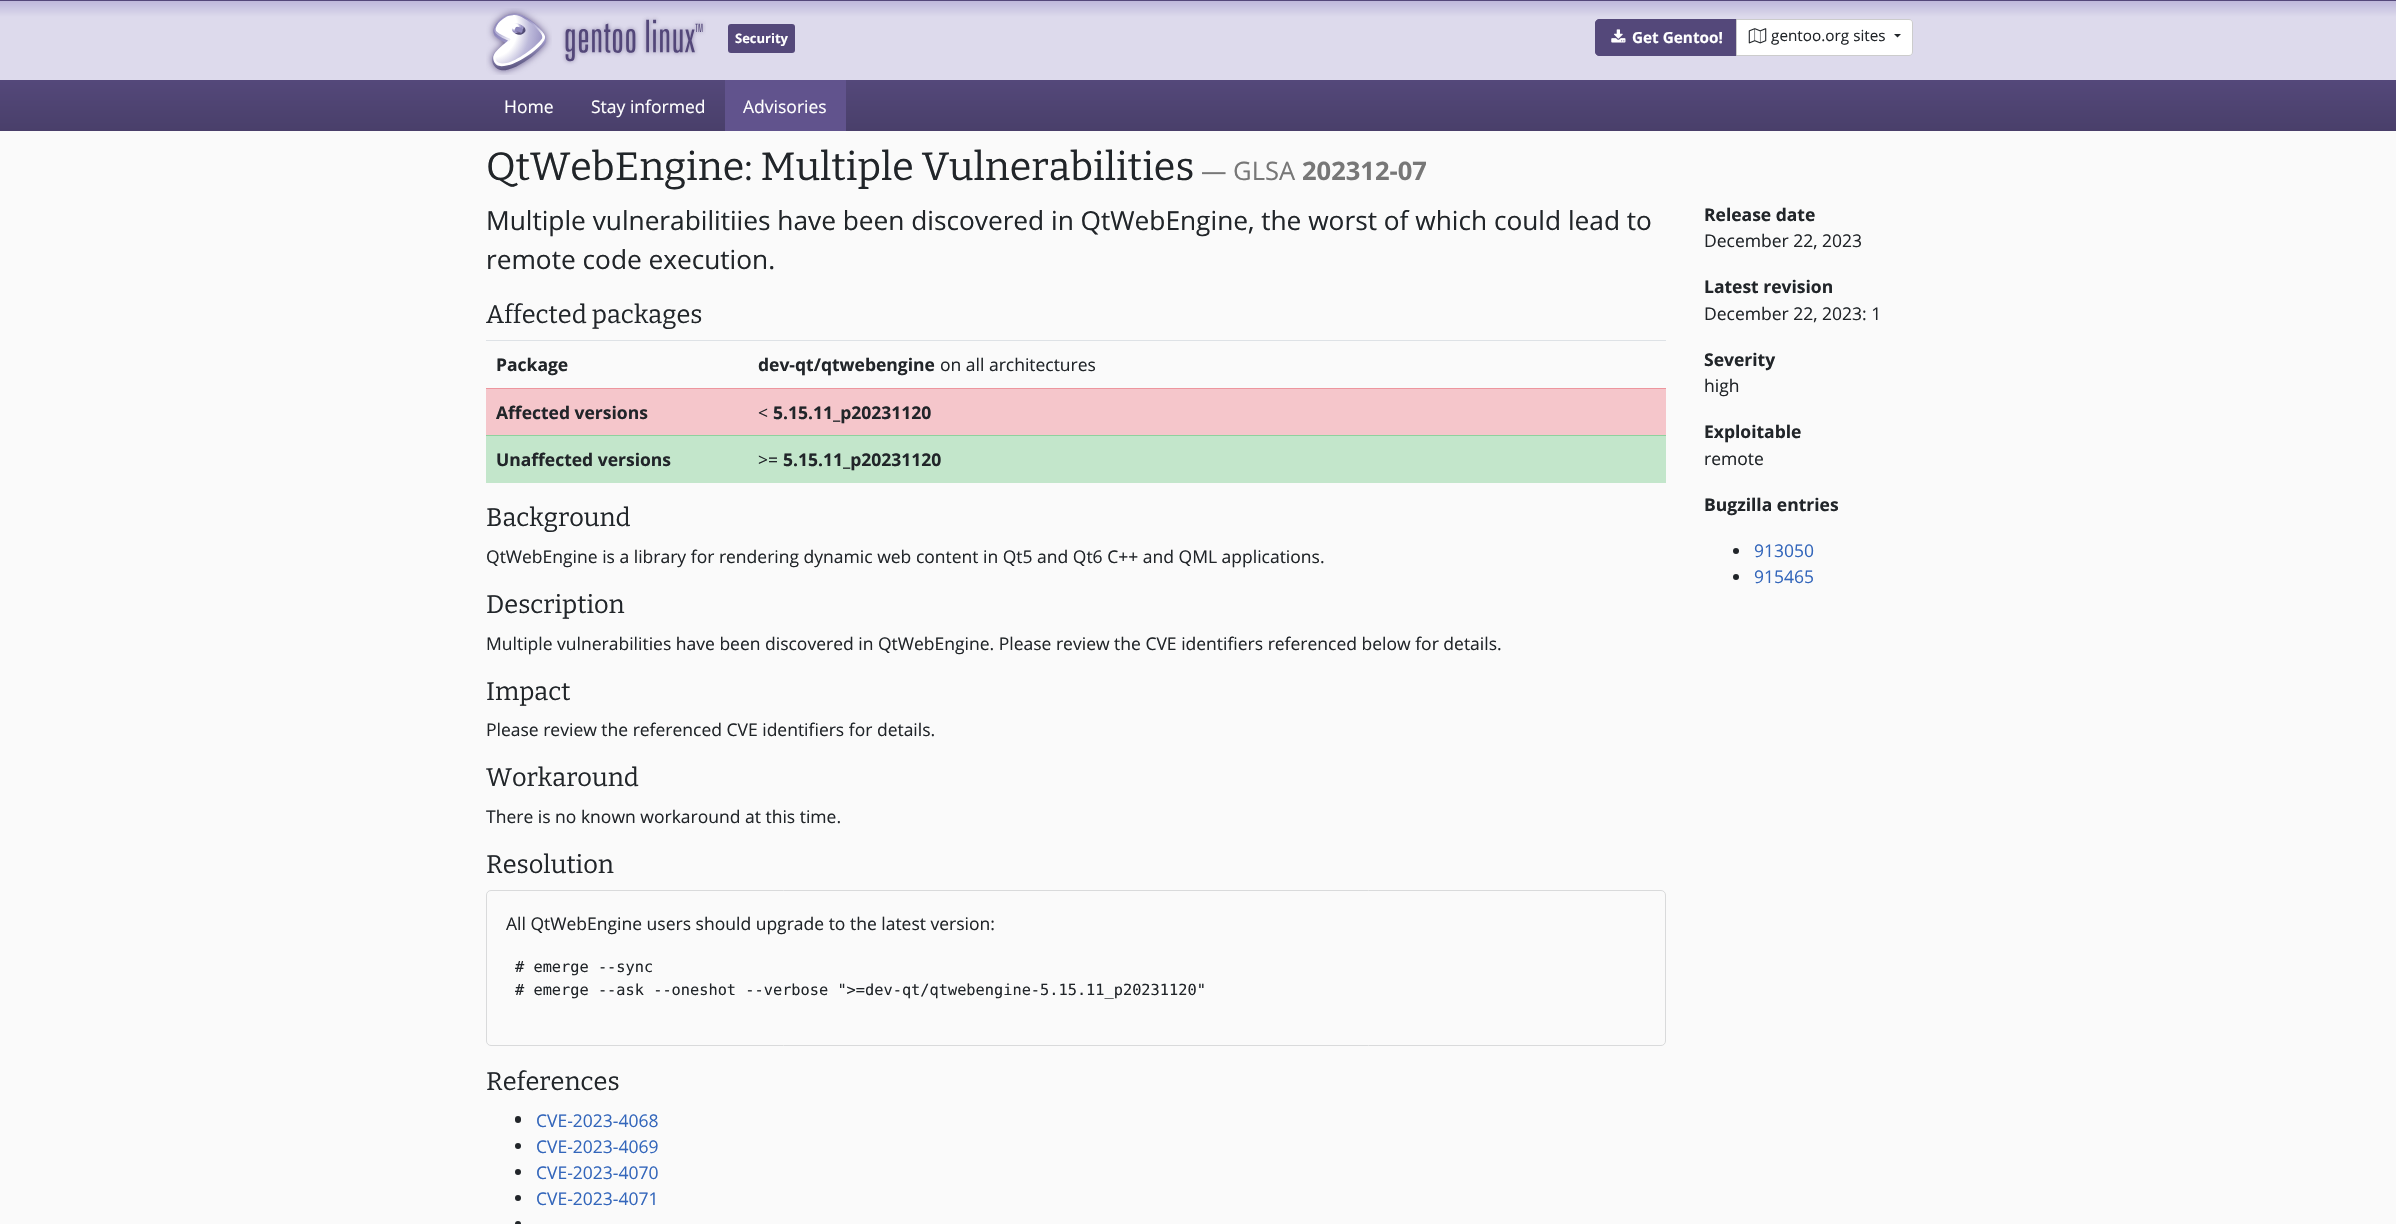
void draw(SkCanvas* canvas) {
    SkPaint paint;
    paint.setAntiAlias(true);
    auto face = [&](const char* family, int weight, float size, bool italic = false) {
        SkFontStyle style(weight, SkFontStyle::kNormal_Width,
            italic ? SkFontStyle::kItalic_Slant : SkFontStyle::kUpright_Slant);
        SkFont result(fontMgr->matchFamilyStyle(family, style), size);
        result.setSubpixel(true);
        return result;
    };
    auto write = [&](const char* s, float x, float y, const SkFont& font, SkColor color) {
        SkPaint ink(SkColor4f::FromColor(color));
        ink.setAntiAlias(true);
        canvas->drawString(s, x, y, font, ink);
    };
    auto block = [&](float x, float y, float w, float h, SkColor color) {
        SkPaint ink(SkColor4f::FromColor(color));
        ink.setAntiAlias(true);
        canvas->drawRect(SkRect::MakeXYWH(x, y, w, h), ink);
    };
    auto card = [&](float x, float y, float w, float h, float radius, SkColor color) {
        SkPaint ink(SkColor4f::FromColor(color));
        ink.setAntiAlias(true);
        canvas->drawRoundRect(SkRect::MakeXYWH(x, y, w, h), radius, radius, ink);
    };
    auto paste = [&](const char* path, float x, float y, float w, float h) {
        auto image = SkImages::DeferredFromEncodedData(SkData::MakeFromFileName(path));
        canvas->drawImageRect(image, SkRect::MakeXYWH(x, y, w, h), SkSamplingOptions());
    };
    canvas->clear(SkColorSetRGB(250, 250, 250));
    block(0, 0, 2396, 1, SkColorSetRGB(84, 72, 122));
    {
        const SkColor colors[] = {SkColorSetRGB(190, 184, 219), SkColorSetRGB(221, 218, 236)};
        const float stops[] = {0, 0.2f};
        const SkPoint ends[] = {{1198, 1.2f}, {1198, 80}};
        paint.setShader(SkGradientShader::MakeLinear(ends, colors, stops, 2, SkTileMode::kClamp));
        paint.setAlpha(255);
    }
    canvas->drawRect(SkRect::MakeXYWH(0, 1, 2396, 79), paint);
    paste("pic1.png", 486, 8, 220, 67);
    card(728, 24, 67, 29, 3, SkColorSetRGB(84, 72, 122));
    auto kFont1 = face("Open Sans", 700, 13);
    write("Security", 735, 43, kFont1, SK_ColorWHITE);
    paint.setShader(nullptr);
    paint.setColor(SkColorSetRGB(84, 72, 122));
    canvas->drawPath(SkPathBuilder().moveTo(1599, 19.5f).lineTo(1737.5f, 19.5f).lineTo(1737.5f, 55.5f).lineTo(1599, 55.5f).cubicTo(1597, 55.5f, 1595.5f, 54, 1595.5f, 52).lineTo(1595.5f, 23).cubicTo(1595.5f, 21, 1597, 19.5f, 1599, 19.5f).close().detach(), paint);
    paint.setStyle(SkPaint::kStroke_Style);
    paint.setStrokeWidth(1);
    canvas->drawPath(SkPathBuilder().moveTo(1599, 19.5f).lineTo(1737.5f, 19.5f).lineTo(1737.5f, 55.5f).lineTo(1599, 55.5f).cubicTo(1597, 55.5f, 1595.5f, 54, 1595.5f, 52).lineTo(1595.5f, 23).cubicTo(1595.5f, 21, 1597, 19.5f, 1599, 19.5f).close().detach(), paint);
    paste("pic2.png", 1611, 29, 15, 14);
    auto kFont2 = face("Open Sans", 700, 15.3f);
    write("Get Gentoo!", 1632, 43, kFont2, SK_ColorWHITE);
    paint.setStyle(SkPaint::kFill_Style);
    paint.setColor(SK_ColorWHITE);
    canvas->drawPath(SkPathBuilder().moveTo(1736.5f, 19.5f).lineTo(1909, 19.5f).cubicTo(1911, 19.5f, 1912.5f, 21, 1912.5f, 23).lineTo(1912.5f, 52).cubicTo(1912.5f, 54, 1911, 55.5f, 1909, 55.5f).lineTo(1736.5f, 55.5f).close().detach(), paint);
    paint.setStyle(SkPaint::kStroke_Style);
    paint.setColor(SkColorSetRGB(204, 204, 204));
    canvas->drawPath(SkPathBuilder().moveTo(1736.5f, 19.5f).lineTo(1909, 19.5f).cubicTo(1911, 19.5f, 1912.5f, 21, 1912.5f, 23).lineTo(1912.5f, 52).cubicTo(1912.5f, 54, 1911, 55.5f, 1909, 55.5f).lineTo(1736.5f, 55.5f).close().detach(), paint);
    paste("pic3.png", 1748, 28, 19, 16);
    auto kFont3 = face("Open Sans", 400, 15.3f);
    write("gentoo.org sites", 1771, 41, kFont3, SkColorSetRGB(33, 37, 41));
    paint.setStyle(SkPaint::kFill_Style);
    paint.setColor(SkColorSetRGB(33, 37, 41));
    canvas->drawPath(SkPathBuilder().moveTo(1894, 34).lineTo(1901, 34).lineTo(1897.5f, 37.5f).close().detach(), paint);
    {
        const SkColor colors[] = {SkColorSetRGB(84, 72, 122), SkColorSetRGB(73, 63, 106)};
        const float stops[] = {0, 1};
        const SkPoint ends[] = {{1198, 80}, {1198, 131}};
        paint.setShader(SkGradientShader::MakeLinear(ends, colors, stops, 2, SkTileMode::kClamp));
        paint.setAlpha(255);
    }
    canvas->drawRect(SkRect::MakeXYWH(0, 80, 2396, 51), paint);
    auto kFont4 = face("Open Sans", 400, 17.5f);
    write("Home", 504, 113, kFont4, SK_ColorWHITE);
    write("Stay informed", 591, 113, kFont4, SK_ColorWHITE);
    block(725, 80, 121, 51, SkColorSetRGB(97, 83, 141));
    write("Advisories", 743, 113, kFont4, SK_ColorWHITE);
    auto kFont5 = face("Bitter", 400, 39.4f);
    write("QtWebEngine: Multiple Vulnerabilities", 486, 180, kFont5, SkColorSetRGB(33, 37, 41));
    auto kFont6 = face("Open Sans", 400, 25.5f);
    write("— GLSA", 1201, 180, kFont6, SkColorSetRGB(119, 119, 119));
    auto kFont7 = face("Open Sans", 700, 25.5f);
    write("202312-07", 1302, 180, kFont7, SkColorSetRGB(119, 119, 119));
    auto kFont8 = face("Open Sans", 400, 26.25f);
    write("Multiple vulnerabilitiies have been discovered in QtWebEngine, the worst of which could lead to", 486, 230, kFont8, SkColorSetRGB(33, 37, 41));
    write("remote code execution.", 486, 269, kFont8, SkColorSetRGB(33, 37, 41));
    auto kFont9 = face("Bitter", 400, 25.4f);
    write("Affected packages", 486, 323, kFont9, SkColorSetRGB(33, 37, 41));
    auto kFont10 = face("Open Sans", 700, 17.5f);
    write("Package", 496, 371, kFont10, SkColorSetRGB(33, 37, 41));
    block(486, 340, 1180, 1, SkColorSetRGB(222, 226, 230));
    write("dev-qt/qtwebengine", 758, 371, kFont10, SkColorSetRGB(33, 37, 41));
    write("on all architectures", 940, 371, kFont4, SkColorSetRGB(33, 37, 41));
    block(486, 389, 1180, 46, SkColorSetRGB(245, 198, 203));
    write("Affected versions", 496, 419, kFont10, SkColorSetRGB(33, 37, 41));
    block(486, 388, 1180, 1, SkColorSetRGB(237, 150, 158));
    write("<", 758, 419, kFont4, SkColorSetRGB(33, 37, 41));
    write("5.15.11_p20231120", 773, 419, kFont10, SkColorSetRGB(33, 37, 41));
    block(486, 436, 1180, 47, SkColorSetRGB(195, 230, 203));
    write("Unaffected versions", 496, 466, kFont10, SkColorSetRGB(33, 37, 41));
    block(486, 435, 1180, 1, SkColorSetRGB(143, 209, 158));
    write(">=", 758, 466, kFont4, SkColorSetRGB(33, 37, 41));
    write("5.15.11_p20231120", 783, 466, kFont10, SkColorSetRGB(33, 37, 41));
    write("Background", 486, 526, kFont9, SkColorSetRGB(33, 37, 41));
    write("QtWebEngine is a library for rendering dynamic web content in Qt5 and Qt6 C++ and QML applications.", 486, 563, kFont4, SkColorSetRGB(33, 37, 41));
    write("Description", 486, 613, kFont9, SkColorSetRGB(33, 37, 41));
    write("Multiple vulnerabilities have been discovered in QtWebEngine. Please review the CVE identifiers referenced below for details.", 486, 650, kFont4, SkColorSetRGB(33, 37, 41));
    write("Impact", 486, 700, kFont9, SkColorSetRGB(33, 37, 41));
    write("Please review the referenced CVE identifiers for details.", 486, 736, kFont4, SkColorSetRGB(33, 37, 41));
    write("Workaround", 486, 786, kFont9, SkColorSetRGB(33, 37, 41));
    write("There is no known workaround at this time.", 486, 823, kFont4, SkColorSetRGB(33, 37, 41));
    write("Resolution", 486, 873, kFont9, SkColorSetRGB(33, 37, 41));
    paint.setStyle(SkPaint::kStroke_Style);
    paint.setShader(nullptr);
    paint.setColor(SkColorSetRGB(217, 218, 219));
    canvas->drawRoundRect(SkRect::MakeXYWH(486.5f, 890.5f, 1179, 155), 4.5f, 4.5f, paint);
    write("All QtWebEngine users should upgrade to the latest version:", 506, 930, kFont4, SkColorSetRGB(33, 37, 41));
    auto kFont11 = face("DejaVu Sans Mono", 400, 15.3f);
    write("# emerge --sync", 515, 972, kFont11, SkColorSetRGB(33, 37, 41));
    write("# emerge --ask --oneshot --verbose \">=dev-qt/qtwebengine-5.15.11_p20231120\"", 515, 995, kFont11, SkColorSetRGB(33, 37, 41));
    write("References", 486, 1090, kFont9, SkColorSetRGB(33, 37, 41));
    card(515, 1116, 6, 7, 3, SkColorSetRGB(33, 37, 41));
    write("CVE-2023-4068", 536, 1127, kFont4, SkColorSetRGB(51, 102, 187));
    paint.setStyle(SkPaint::kFill_Style);
    paint.setColor(SkColorSetRGB(33, 37, 41));
    canvas->drawCircle(518, 1146, 3, paint);
    write("CVE-2023-4069", 536, 1153, kFont4, SkColorSetRGB(51, 102, 187));
    canvas->drawCircle(518, 1172, 3, paint);
    write("CVE-2023-4070", 536, 1179, kFont4, SkColorSetRGB(51, 102, 187));
    canvas->drawCircle(518, 1198, 3, paint);
    write("CVE-2023-4071", 536, 1205, kFont4, SkColorSetRGB(51, 102, 187));
    canvas->drawCircle(518, 1224, 3, paint);
    write("Release date", 1704, 221, kFont10, SkColorSetRGB(33, 37, 41));
    write("December 22, 2023", 1704, 247, kFont4, SkColorSetRGB(33, 37, 41));
    write("Latest revision", 1704, 293, kFont10, SkColorSetRGB(33, 37, 41));
    write("December 22, 2023: 1", 1704, 320, kFont4, SkColorSetRGB(33, 37, 41));
    write("Severity", 1704, 366, kFont10, SkColorSetRGB(33, 37, 41));
    write("high", 1704, 392, kFont4, SkColorSetRGB(33, 37, 41));
    write("Exploitable", 1704, 438, kFont10, SkColorSetRGB(33, 37, 41));
    write("remote", 1704, 465, kFont4, SkColorSetRGB(33, 37, 41));
    write("Bugzilla entries", 1704, 511, kFont10, SkColorSetRGB(33, 37, 41));
    canvas->drawCircle(1736, 551, 3, paint);
    write("913050", 1754, 557, kFont4, SkColorSetRGB(51, 102, 187));
    canvas->drawCircle(1736, 577, 3, paint);
    write("915465", 1754, 583, kFont4, SkColorSetRGB(51, 102, 187));
}
